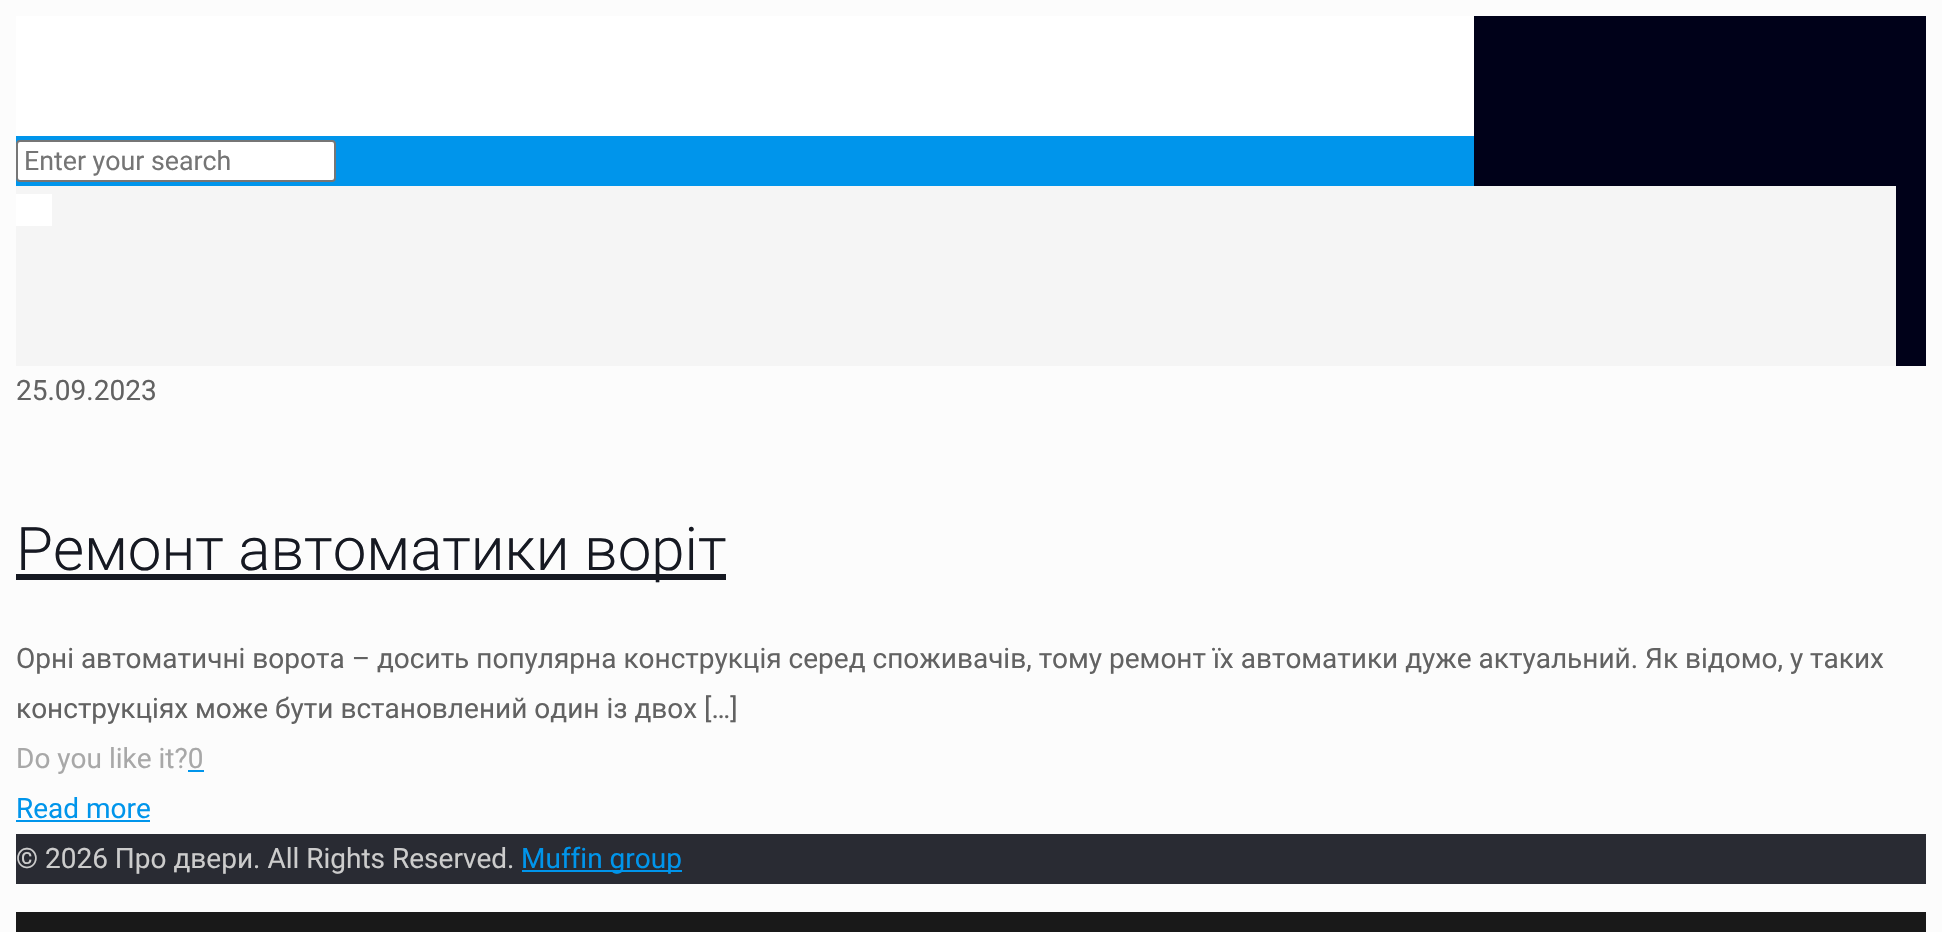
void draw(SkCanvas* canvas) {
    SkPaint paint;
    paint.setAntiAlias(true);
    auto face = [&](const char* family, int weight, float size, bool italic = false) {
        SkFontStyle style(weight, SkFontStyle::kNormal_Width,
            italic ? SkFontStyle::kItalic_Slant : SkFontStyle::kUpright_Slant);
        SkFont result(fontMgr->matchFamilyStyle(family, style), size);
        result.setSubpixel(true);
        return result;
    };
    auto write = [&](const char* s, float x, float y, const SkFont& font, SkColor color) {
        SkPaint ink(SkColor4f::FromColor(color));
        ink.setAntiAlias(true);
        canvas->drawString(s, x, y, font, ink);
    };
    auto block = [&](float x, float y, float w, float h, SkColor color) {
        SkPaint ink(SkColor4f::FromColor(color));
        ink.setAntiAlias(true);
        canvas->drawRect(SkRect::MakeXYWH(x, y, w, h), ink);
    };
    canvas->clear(SkColorSetRGB(252, 252, 252));
    block(1474, 16, 452, 350, SkColorSetRGB(0, 1, 25));
    block(16, 16, 1458, 120, SK_ColorWHITE);
    block(16, 136, 1458, 50, SkColorSetRGB(0, 149, 235));
    paint.setColor(SK_ColorWHITE);
    canvas->drawRoundRect(SkRect::MakeXYWH(17, 141, 318, 40), 3, 3, paint);
    paint.setStyle(SkPaint::kStroke_Style);
    paint.setStrokeWidth(2);
    paint.setColor(SkColorSetRGB(118, 118, 118));
    canvas->drawRoundRect(SkRect::MakeXYWH(17, 141, 318, 40), 3, 3, paint);
    auto kFont1 = face("Roboto", 400, 26.75f);
    write("Enter your search", 24, 170, kFont1, SkColorSetRGB(117, 117, 117));
    block(16, 186, 1880, 180, SkColorSetRGB(245, 245, 245));
    block(16, 194, 36, 32, SK_ColorWHITE);
    auto kFont2 = face("Roboto", 400, 28);
    write("25.09.2023", 16, 400, kFont2, SkColorSetRGB(98, 98, 98));
    block(16, 574, 710, 6, SkColorSetRGB(22, 25, 34));
    auto kFont3 = face("Roboto", 300, 60);
    write("Ремонт автоматики воріт", 16, 570, kFont3, SkColorSetRGB(22, 25, 34));
    write("Орні автоматичні ворота – досить популярна конструкція серед споживачів, тому ремонт їх автоматики дуже актуальний. Як відомо, у таких", 16, 668, kFont2, SkColorSetRGB(98, 98, 98));
    write("конструкціях може бути встановлений один із двох […]", 16, 718, kFont2, SkColorSetRGB(98, 98, 98));
    write("Do you like it?0", 16, 768, kFont2, SkColorSetRGB(168, 168, 168));
    block(188, 770, 16, 2, SkColorSetRGB(0, 149, 235));
    write("Read more", 16, 818, kFont2, SkColorSetRGB(0, 149, 235));
    block(16, 820, 134, 2, SkColorSetRGB(0, 149, 235));
    block(16, 834, 1910, 50, SkColorSetRGB(41, 43, 51));
    write("© 2026 Про двери. All Rights Reserved.", 16, 868, kFont2, SkColorSetRGB(204, 204, 204));
    block(522, 870, 160, 2, SkColorSetRGB(0, 149, 235));
    write("Muffin group", 521, 868, kFont2, SkColorSetRGB(0, 149, 235));
    block(16, 912, 1910, 20, SkColorSetRGB(25, 25, 25));
}
